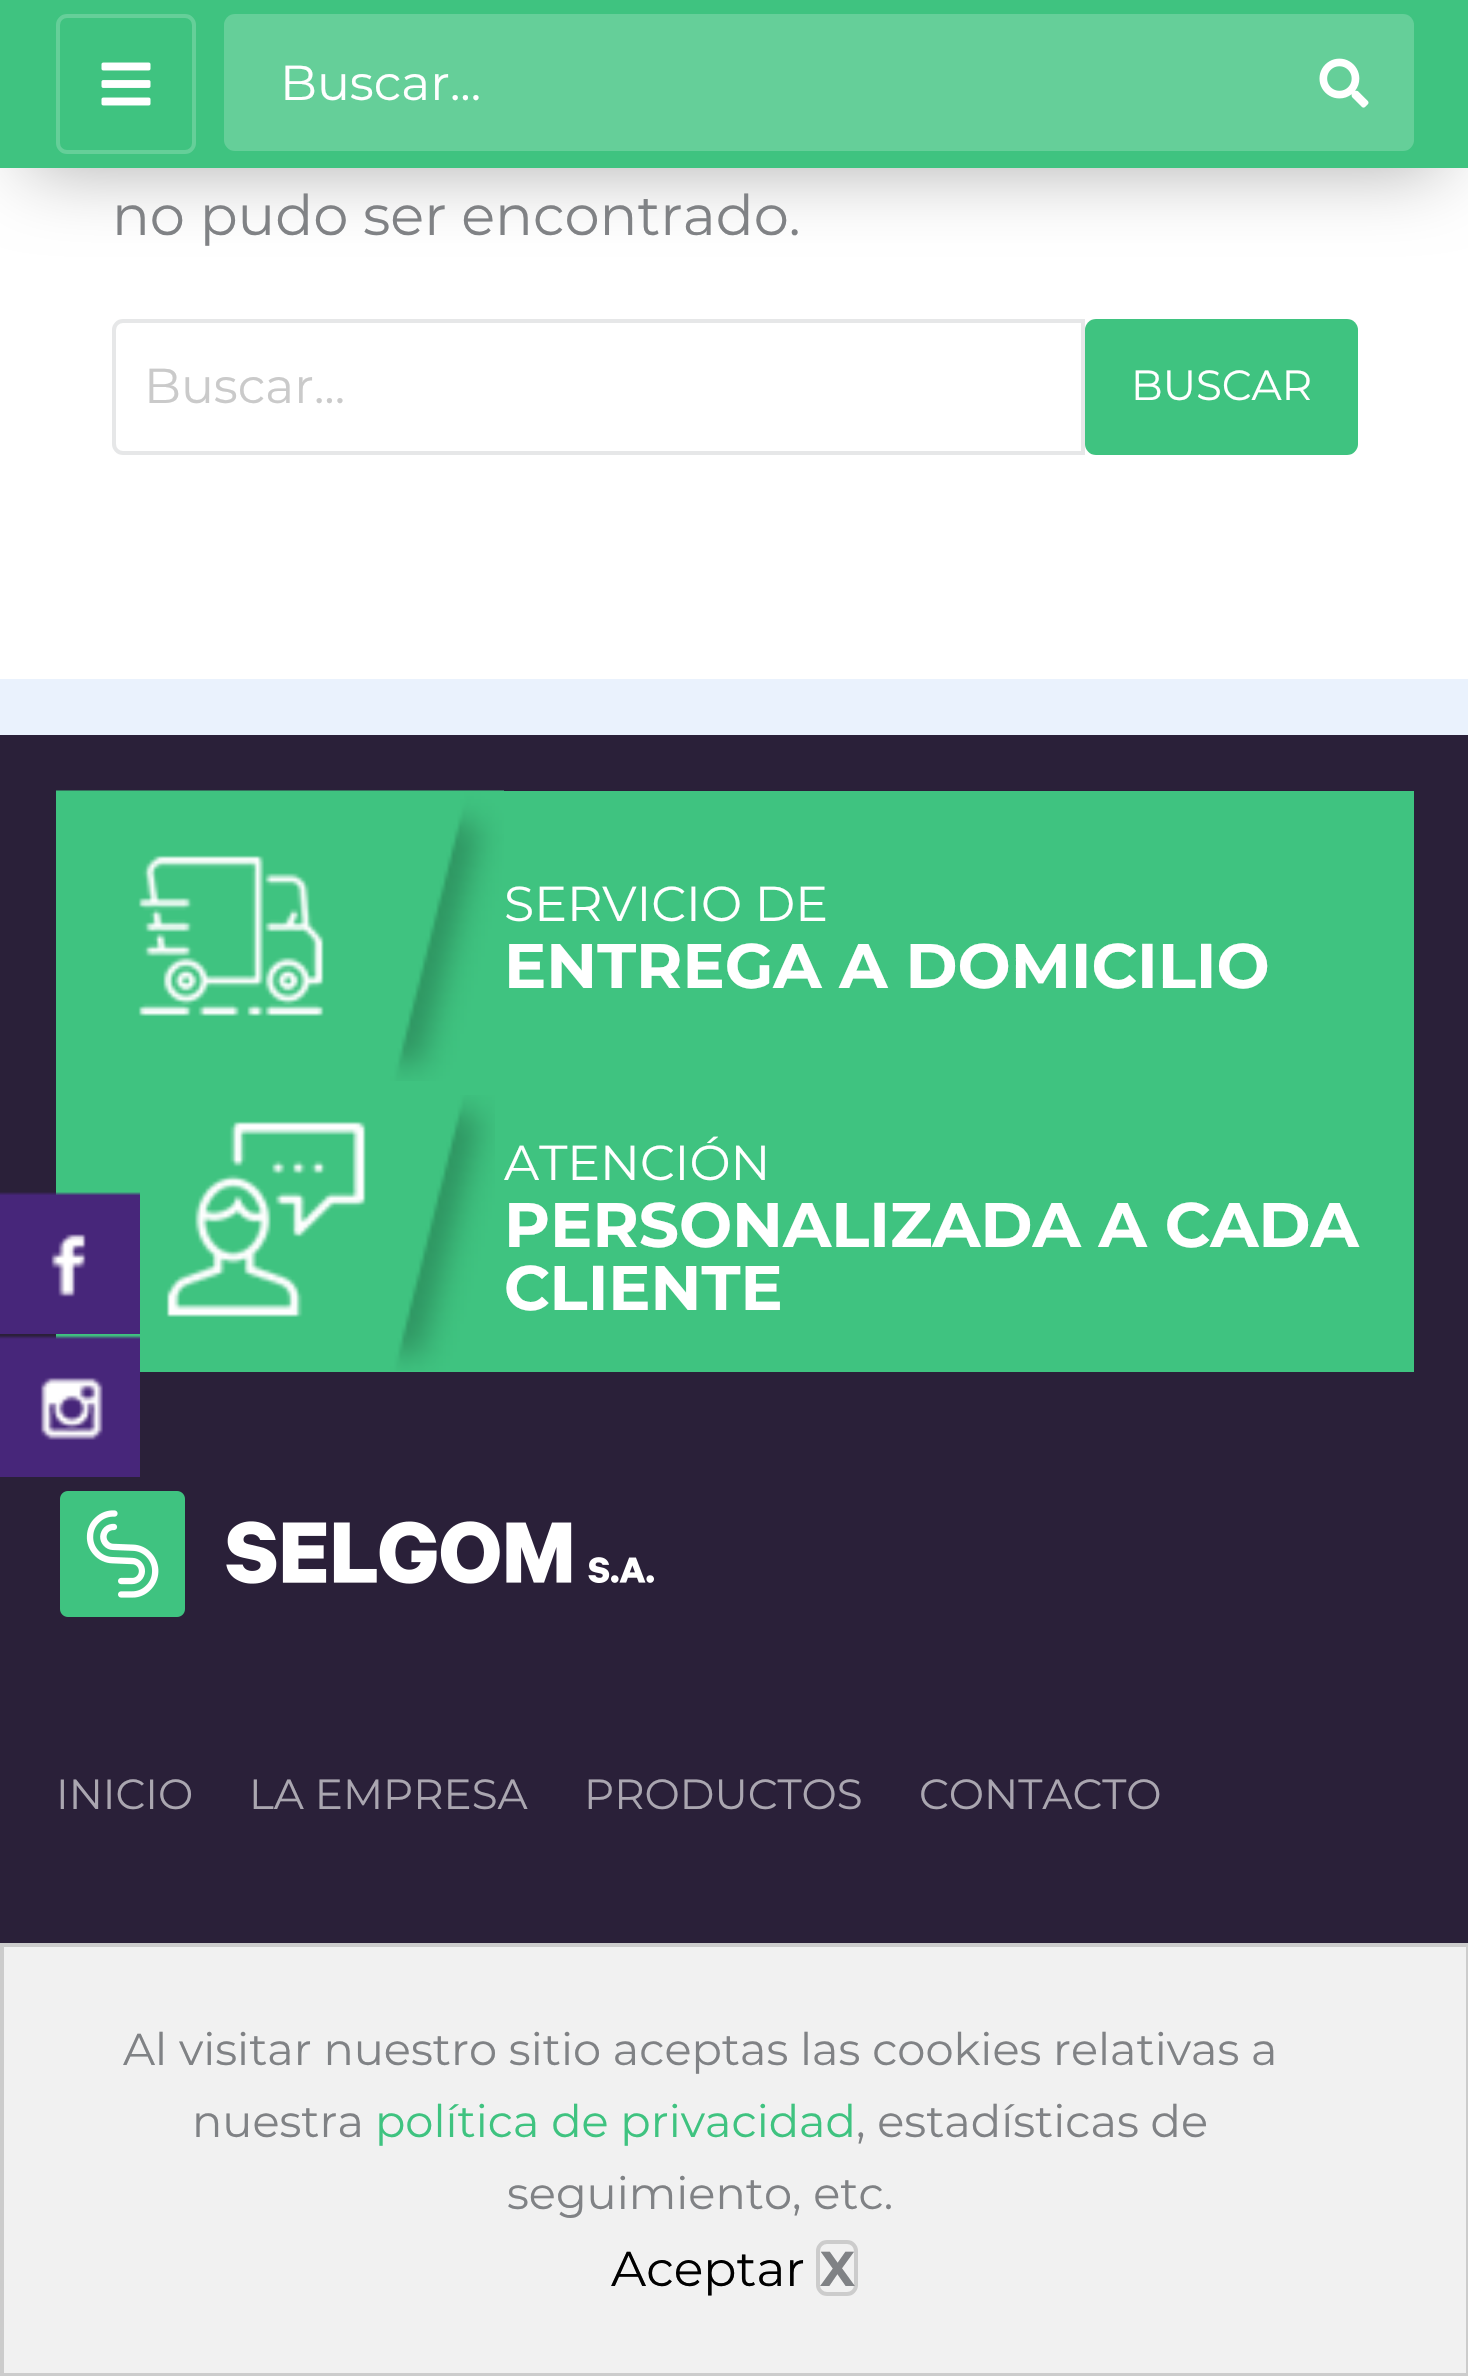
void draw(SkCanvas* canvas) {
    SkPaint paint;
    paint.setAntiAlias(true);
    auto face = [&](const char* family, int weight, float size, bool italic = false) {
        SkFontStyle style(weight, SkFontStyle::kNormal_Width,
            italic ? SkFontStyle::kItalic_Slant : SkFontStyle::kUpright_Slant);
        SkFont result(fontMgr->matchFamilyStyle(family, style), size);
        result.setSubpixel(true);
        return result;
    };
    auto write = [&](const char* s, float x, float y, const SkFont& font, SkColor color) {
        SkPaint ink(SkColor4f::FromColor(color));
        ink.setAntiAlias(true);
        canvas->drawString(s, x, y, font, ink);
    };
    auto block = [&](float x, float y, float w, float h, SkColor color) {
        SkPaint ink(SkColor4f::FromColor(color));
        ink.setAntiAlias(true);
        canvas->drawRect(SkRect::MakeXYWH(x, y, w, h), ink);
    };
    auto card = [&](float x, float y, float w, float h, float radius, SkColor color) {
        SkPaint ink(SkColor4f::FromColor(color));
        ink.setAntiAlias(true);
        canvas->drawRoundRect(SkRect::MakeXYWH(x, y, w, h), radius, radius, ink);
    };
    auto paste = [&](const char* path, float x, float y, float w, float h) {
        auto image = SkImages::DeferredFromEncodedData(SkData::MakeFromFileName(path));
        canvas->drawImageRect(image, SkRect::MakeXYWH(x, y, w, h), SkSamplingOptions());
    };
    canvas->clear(SkColorSetRGB(234, 242, 253));
    block(0, 168, 1468, 511, SK_ColorWHITE);
    paint.setColor(SkColorSetARGB(82, 0, 0, 0));
    paint.setMaskFilter(SkMaskFilter::MakeBlur(kNormal_SkBlurStyle, 37));
    canvas->drawRect(SkRect::MakeXYWH(28, 56, 1414, 112), paint);
    paint.setMaskFilter(nullptr);
    block(0, 0, 1468, 168, SkColorSetRGB(63, 195, 128));
    paint.setStyle(SkPaint::kStroke_Style);
    paint.setStrokeWidth(4);
    paint.setColor(SkColorSetRGB(101, 207, 153));
    canvas->drawRoundRect(SkRect::MakeXYWH(58, 16, 136, 136), 9, 9, paint);
    paste("pic1.png", 101, 62, 50, 44);
    card(224, 14, 1190, 137, 11, SkColorSetRGB(101, 207, 153));
    auto kFont1 = face("Montserrat", 400, 49);
    write("Buscar...", 280, 100, kFont1, SK_ColorWHITE);
    paste("pic2.png", 1319, 58, 50, 50);
    auto kFont2 = face("Montserrat", 400, 56);
    write("no pudo ser encontrado.", 112, 235, kFont2, SkColorSetRGB(128, 130, 133));
    paint.setColor(SkColorSetRGB(230, 231, 232));
    canvas->drawPath(SkPathBuilder().moveTo(123, 321).lineTo(1083, 321).lineTo(1083, 453).lineTo(123, 453).cubicTo(118, 453, 114, 449, 114, 444).lineTo(114, 330).cubicTo(114, 325, 118, 321, 123, 321).close().detach(), paint);
    write("Buscar...", 144, 403, kFont1, SkColorSetRGB(202, 202, 202));
    card(1085, 319, 273, 136, 11, SkColorSetRGB(63, 195, 128));
    auto kFont3 = face("Montserrat", 400, 42);
    write("BUSCAR", 1131, 400, kFont3, SK_ColorWHITE);
    block(0, 735, 1468, 1208, SkColorSetRGB(42, 32, 57));
    block(56, 791, 1358, 581, SkColorSetRGB(63, 195, 128));
    paste("pic3.png", 56, 790, 448, 291);
    write("SERVICIO DE", 504, 921, kFont1, SK_ColorWHITE);
    auto kFont4 = face("Montserrat", 700, 63);
    write("ENTREGA A DOMICILIO", 504, 988, kFont4, SK_ColorWHITE);
    paste("pic4.png", 166, 1095, 329, 276);
    write("ATENCIÓN", 504, 1180, kFont1, SK_ColorWHITE);
    write("PERSONALIZADA A CADA", 504, 1247, kFont4, SK_ColorWHITE);
    write("CLIENTE", 504, 1310, kFont4, SK_ColorWHITE);
    paste("pic5.png", 60, 1491, 594, 126);
    write("INICIO", 56, 1809, kFont3, SkColorSetRGB(170, 166, 176));
    write("LA EMPRESA", 249, 1809, kFont3, SkColorSetRGB(170, 166, 176));
    write("PRODUCTOS", 584, 1809, kFont3, SkColorSetRGB(170, 166, 176));
    write("CONTACTO", 919, 1809, kFont3, SkColorSetRGB(170, 166, 176));
    paste("pic6.png", 0, 1192, 140, 142);
    paste("pic7.png", 0, 1335, 140, 142);
    paint.setStyle(SkPaint::kFill_Style);
    paint.setColor(SkColorSetRGB(241, 241, 241));
    canvas->drawRect(SkRect::MakeXYWH(2, 1945, 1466, 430), paint);
    paint.setStyle(SkPaint::kStroke_Style);
    paint.setColor(SkColorSetRGB(204, 204, 204));
    canvas->drawRect(SkRect::MakeXYWH(2, 1945, 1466, 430), paint);
    auto kFont5 = face("Montserrat", 400, 44.8f);
    write("Al visitar nuestro sitio aceptas las cookies relativas a", 123, 2065, kFont5, SkColorSetRGB(128, 130, 133));
    write("nuestra", 192, 2137, kFont5, SkColorSetRGB(128, 130, 133));
    write("política de privacidad", 375, 2137, kFont5, SkColorSetRGB(63, 195, 128));
    write(", estadísticas de", 856, 2137, kFont5, SkColorSetRGB(128, 130, 133));
    write("seguimiento, etc.", 507, 2209, kFont5, SkColorSetRGB(128, 130, 133));
    write("Aceptar", 611, 2286, kFont1, SK_ColorBLACK);
    canvas->drawRoundRect(SkRect::MakeXYWH(818, 2242, 38, 52), 9, 9, paint);
    auto kFont6 = face("Montserrat", 700, 49);
    write("X", 820, 2286, kFont6, SkColorSetRGB(128, 130, 133));
}
